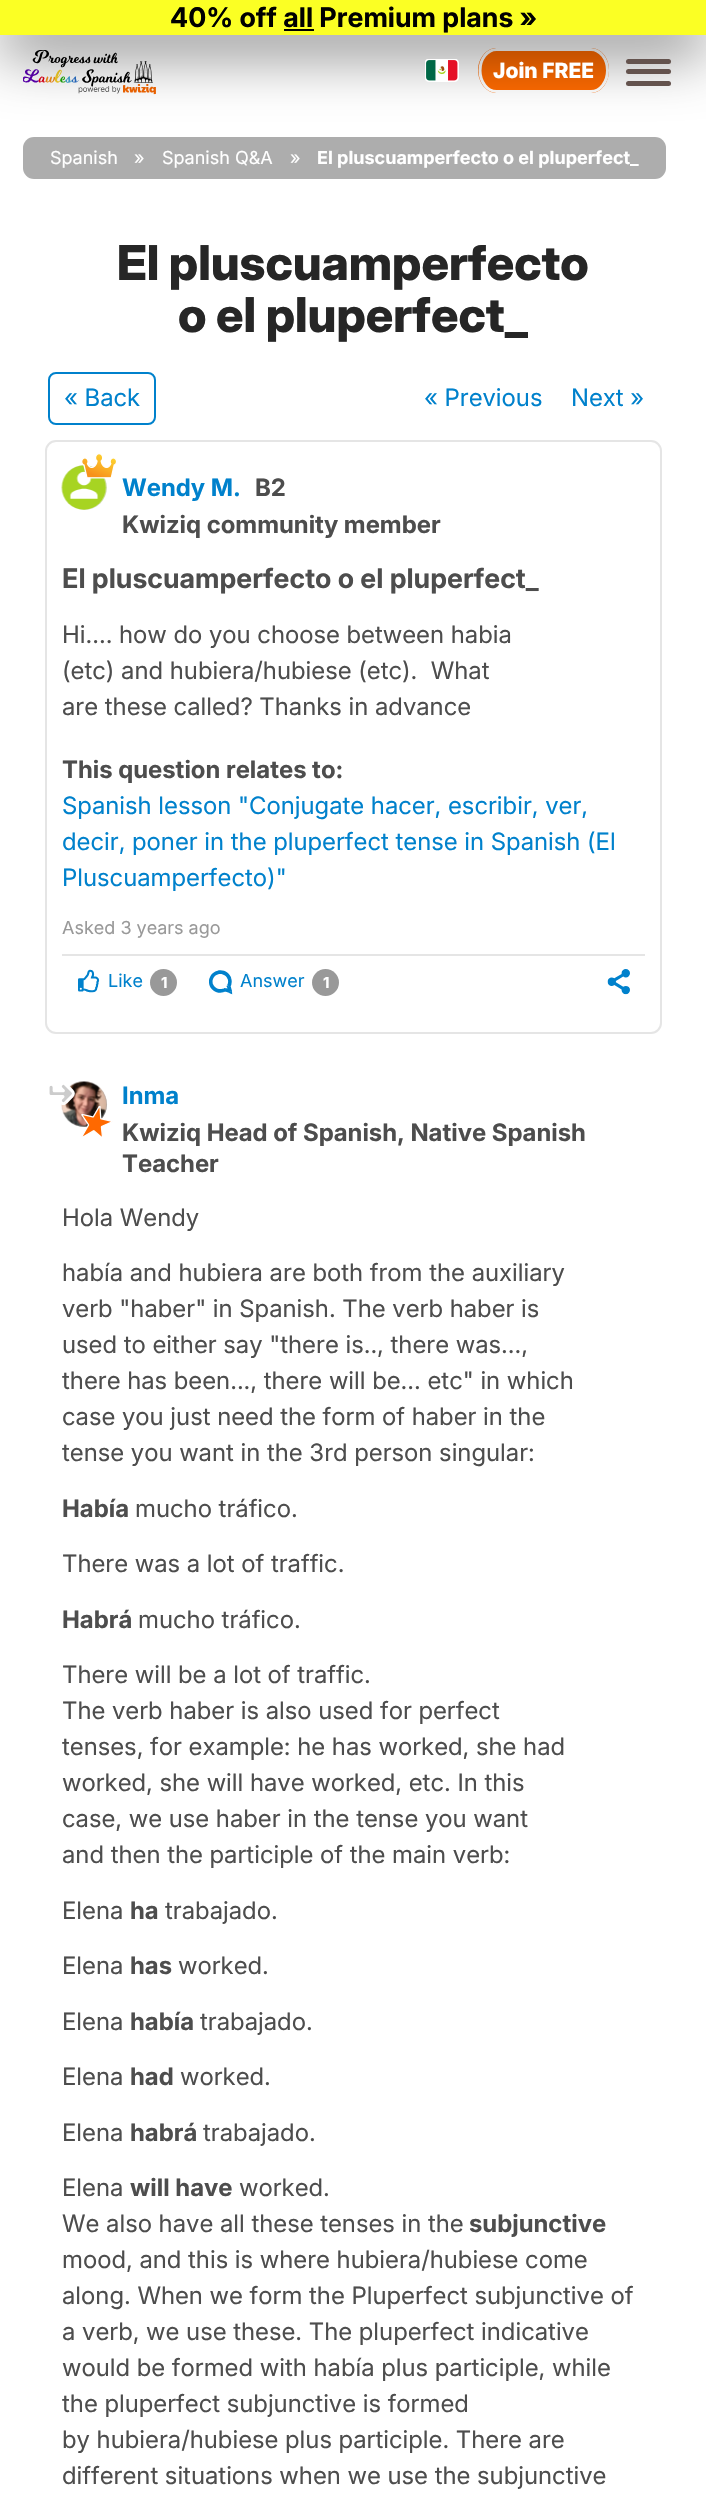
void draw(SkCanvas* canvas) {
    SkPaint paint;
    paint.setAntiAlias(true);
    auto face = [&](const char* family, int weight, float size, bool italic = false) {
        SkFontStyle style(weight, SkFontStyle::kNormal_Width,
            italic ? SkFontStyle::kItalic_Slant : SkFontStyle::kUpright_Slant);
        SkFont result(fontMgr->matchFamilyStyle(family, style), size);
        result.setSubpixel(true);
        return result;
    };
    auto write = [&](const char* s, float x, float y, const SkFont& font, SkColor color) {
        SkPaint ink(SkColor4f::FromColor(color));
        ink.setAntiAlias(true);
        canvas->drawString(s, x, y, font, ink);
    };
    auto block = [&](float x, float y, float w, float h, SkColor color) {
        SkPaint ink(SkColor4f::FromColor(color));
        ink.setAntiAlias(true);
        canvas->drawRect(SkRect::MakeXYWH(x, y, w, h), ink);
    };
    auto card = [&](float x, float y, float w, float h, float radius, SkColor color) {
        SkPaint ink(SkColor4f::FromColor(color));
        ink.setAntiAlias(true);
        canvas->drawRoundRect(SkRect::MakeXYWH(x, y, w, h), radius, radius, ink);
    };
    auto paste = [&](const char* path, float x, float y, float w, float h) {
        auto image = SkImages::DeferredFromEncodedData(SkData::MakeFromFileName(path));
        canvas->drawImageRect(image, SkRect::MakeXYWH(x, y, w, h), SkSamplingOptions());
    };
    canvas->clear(SK_ColorWHITE);
    paste("pic1.png", 23, 50, 133, 45);
    paint.setColor(SkColorSetRGB(255, 106, 0));
    canvas->drawPath(SkPathBuilder().moveTo(496, 48).lineTo(591, 48).cubicTo(601, 48, 609, 58, 609, 70).cubicTo(609, 83, 601, 93, 591, 93).lineTo(496, 93).cubicTo(487, 93, 478, 83, 478, 70).cubicTo(478, 58, 487, 48, 496, 48).close().detach(), paint);
    paint.setStyle(SkPaint::kStroke_Style);
    paint.setStrokeWidth(3);
    paint.setColor(SK_ColorWHITE);
    canvas->drawPath(SkPathBuilder().moveTo(496.5f, 49.5f).lineTo(591, 49.5f).cubicTo(600, 49.5f, 607.5f, 59, 607.5f, 70.5f).cubicTo(607.5f, 82, 600, 91.5f, 591, 91.5f).lineTo(496.5f, 91.5f).cubicTo(487.5f, 91.5f, 480, 82, 480, 70.5f).cubicTo(480, 59, 487.5f, 49.5f, 496.5f, 49.5f).close().detach(), paint);
    paint.setStyle(SkPaint::kFill_Style);
    paint.setColor(SkColorSetARGB(153, 0, 0, 0));
    paint.setMaskFilter(SkMaskFilter::MakeBlur(kNormal_SkBlurStyle, 30));
    canvas->drawRect(SkRect::MakeXYWH(0, 15, 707, 35), paint);
    paint.setMaskFilter(nullptr);
    block(0, 0, 706, 35, SkColorSetRGB(251, 255, 36));
    auto kFont1 = face("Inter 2", 700, 27);
    write("40% off all Premium plans »", 170, 27, kFont1, SK_ColorBLACK);
    block(284, 29, 30, 2, SK_ColorBLACK);
    paste("pic2.png", 425, 59, 34, 23);
    auto kFont2 = face("Inter", 800, 21);
    write("Join FREE", 493, 78, kFont2, SK_ColorWHITE);
    card(626, 59, 45, 5, 2.5f, SkColorSetRGB(100, 83, 78));
    card(626, 69, 45, 5, 2.5f, SkColorSetRGB(100, 83, 78));
    card(626, 81, 45, 5, 2.5f, SkColorSetRGB(100, 83, 78));
    card(23, 137, 643, 42, 11, SkColorSetRGB(173, 173, 173));
    auto kFont3 = face("Inter 2", 400, 18);
    write("Spanish", 50, 164, kFont3, SK_ColorWHITE);
    write("»", 134, 164, kFont3, SK_ColorWHITE);
    write("Spanish Q&A", 162, 164, kFont3, SK_ColorWHITE);
    write("»", 290, 164, kFont3, SK_ColorWHITE);
    auto kFont4 = face("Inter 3", 700, 18);
    write("El pluscuamperfecto o el pluperfect_", 317, 164, kFont4, SK_ColorWHITE);
    auto kFont5 = face("Inter 2", 800, 48);
    write("El pluscuamperfecto", 117, 280, kFont5, SkColorSetRGB(38, 38, 38));
    write("o el pluperfect_", 178, 332, kFont5, SkColorSetRGB(38, 38, 38));
    paint.setStyle(SkPaint::kStroke_Style);
    paint.setStrokeWidth(2);
    paint.setColor(SkColorSetRGB(0, 129, 204));
    canvas->drawRoundRect(SkRect::MakeXYWH(49, 373, 106, 51), 7, 7, paint);
    auto kFont6 = face("Inter", 400, 24);
    write("« Back", 64, 406, kFont6, SkColorSetRGB(0, 129, 204));
    write("« Previous", 424, 406, kFont6, SkColorSetRGB(0, 129, 204));
    write("Next »", 571, 406, kFont6, SkColorSetRGB(0, 129, 204));
    paint.setColor(SkColorSetRGB(229, 229, 229));
    canvas->drawRoundRect(SkRect::MakeXYWH(46, 441, 615, 592), 10, 10, paint);
    paint.setStyle(SkPaint::kFill_Style);
    canvas->drawCircle(84.5f, 487.5f, 22.5f, paint);
    paste("pic4.png", 61, 465, 46, 45);
    paste("pic3.png", 81, 453, 36, 26);
    auto kFont7 = face("Inter", 700, 24);
    write("Wendy M.", 122, 496, kFont7, SkColorSetRGB(0, 129, 204));
    write("B2", 255, 496, kFont7, SkColorSetRGB(77, 77, 77));
    write("Kwiziq community member", 122, 533, kFont7, SkColorSetRGB(77, 77, 77));
    write("El pluscuamperfecto o el pluperfect_", 62, 588, kFont1, SkColorSetRGB(77, 77, 77));
    write("Hi.... how do you choose between habia", 62, 643, kFont6, SkColorSetRGB(77, 77, 77));
    write("(etc) and hubiera/hubiese (etc).  What", 62, 679, kFont6, SkColorSetRGB(77, 77, 77));
    write("are these called? Thanks in advance", 62, 715, kFont6, SkColorSetRGB(77, 77, 77));
    write("This question relates to:", 62, 778, kFont7, SkColorSetRGB(77, 77, 77));
    write("Spanish lesson \"Conjugate hacer, escribir, ver,", 62, 814, kFont6, SkColorSetRGB(0, 129, 204));
    write("decir, poner in the pluperfect tense in Spanish (El", 62, 850, kFont6, SkColorSetRGB(0, 129, 204));
    write("Pluscuamperfecto)\"", 62, 886, kFont6, SkColorSetRGB(0, 129, 204));
    write("Asked 3 years ago", 62, 934, kFont3, SkColorSetRGB(153, 153, 153));
    block(62, 954, 583, 2, SkColorSetRGB(229, 229, 229));
    paste("pic5.png", 78, 969, 22, 24);
    write("Like", 108, 987, kFont3, SkColorSetRGB(0, 129, 204));
    paint.setColor(SkColorSetRGB(153, 153, 153));
    canvas->drawCircle(163.5f, 982.5f, 13.5f, paint);
    auto kFont8 = face("Inter 3", 700, 15);
    write("1", 161, 988, kFont8, SK_ColorWHITE);
    paste("pic6.png", 209, 970, 24, 25);
    write("Answer", 240, 987, kFont3, SkColorSetRGB(0, 129, 204));
    canvas->drawCircle(325.5f, 982.5f, 13.5f, paint);
    write("1", 323, 988, kFont8, SK_ColorWHITE);
    paste("pic7.png", 607, 969, 23, 26);
    paint.setColor(SkColorSetRGB(165, 165, 165));
    canvas->drawCircle(84.5f, 1104.5f, 22.5f, paint);
    paste("pic8.png", 61, 1081, 46, 46);
    paste("pic9.png", 49, 1084, 26, 21);
    paste("pic10.png", 81, 1106, 32, 31);
    write("Inma", 122, 1104, kFont7, SkColorSetRGB(0, 129, 204));
    write("Kwiziq Head of Spanish, Native Spanish", 122, 1141, kFont7, SkColorSetRGB(77, 77, 77));
    write("Teacher", 122, 1172, kFont7, SkColorSetRGB(77, 77, 77));
    write("Hola Wendy", 62, 1226, kFont6, SkColorSetRGB(77, 77, 77));
    write("había and hubiera are both from the auxiliary", 62, 1281, kFont6, SkColorSetRGB(77, 77, 77));
    write("verb \"haber\" in Spanish. The verb haber is", 62, 1317, kFont6, SkColorSetRGB(77, 77, 77));
    write("used to either say \"there is.., there was...,", 62, 1353, kFont6, SkColorSetRGB(77, 77, 77));
    write("there has been..., there will be... etc\" in which", 62, 1389, kFont6, SkColorSetRGB(77, 77, 77));
    write("case you just need the form of haber in the", 62, 1425, kFont6, SkColorSetRGB(77, 77, 77));
    write("tense you want in the 3rd person singular:", 62, 1461, kFont6, SkColorSetRGB(77, 77, 77));
    write("Había", 62, 1517, kFont7, SkColorSetRGB(77, 77, 77));
    write("mucho tráfico.", 135, 1517, kFont6, SkColorSetRGB(77, 77, 77));
    write("There was a lot of traffic.", 62, 1572, kFont6, SkColorSetRGB(77, 77, 77));
    write("Habrá", 62, 1628, kFont7, SkColorSetRGB(77, 77, 77));
    write("mucho tráfico.", 138, 1628, kFont6, SkColorSetRGB(77, 77, 77));
    write("There will be a lot of traffic.", 62, 1683, kFont6, SkColorSetRGB(77, 77, 77));
    write("The verb haber is also used for perfect", 62, 1719, kFont6, SkColorSetRGB(77, 77, 77));
    write("tenses, for example: he has worked, she had", 62, 1755, kFont6, SkColorSetRGB(77, 77, 77));
    write("worked, she will have worked, etc. In this", 62, 1791, kFont6, SkColorSetRGB(77, 77, 77));
    write("case, we use haber in the tense you want", 62, 1827, kFont6, SkColorSetRGB(77, 77, 77));
    write("and then the participle of the main verb:", 62, 1863, kFont6, SkColorSetRGB(77, 77, 77));
    write("Elena", 62, 1919, kFont6, SkColorSetRGB(77, 77, 77));
    write("ha", 130, 1919, kFont7, SkColorSetRGB(77, 77, 77));
    write("trabajado.", 165, 1919, kFont6, SkColorSetRGB(77, 77, 77));
    write("Elena", 62, 1974, kFont6, SkColorSetRGB(77, 77, 77));
    write("has", 130, 1974, kFont7, SkColorSetRGB(77, 77, 77));
    write("worked.", 178, 1974, kFont6, SkColorSetRGB(77, 77, 77));
    write("Elena", 62, 2030, kFont6, SkColorSetRGB(77, 77, 77));
    write("había", 130, 2030, kFont7, SkColorSetRGB(77, 77, 77));
    write("trabajado.", 200, 2030, kFont6, SkColorSetRGB(77, 77, 77));
    write("Elena", 62, 2085, kFont6, SkColorSetRGB(77, 77, 77));
    write("had", 130, 2085, kFont7, SkColorSetRGB(77, 77, 77));
    write("worked.", 180, 2085, kFont6, SkColorSetRGB(77, 77, 77));
    write("Elena", 62, 2141, kFont6, SkColorSetRGB(77, 77, 77));
    write("habrá", 130, 2141, kFont7, SkColorSetRGB(77, 77, 77));
    write("trabajado.", 203, 2141, kFont6, SkColorSetRGB(77, 77, 77));
    write("Elena", 62, 2196, kFont6, SkColorSetRGB(77, 77, 77));
    write("will have", 130, 2196, kFont7, SkColorSetRGB(77, 77, 77));
    write("worked.", 239, 2196, kFont6, SkColorSetRGB(77, 77, 77));
    write("We also have all these tenses in the", 62, 2232, kFont6, SkColorSetRGB(77, 77, 77));
    write("subjunctive", 469, 2232, kFont7, SkColorSetRGB(77, 77, 77));
    write("mood, and this is where hubiera/hubiese come", 62, 2268, kFont6, SkColorSetRGB(77, 77, 77));
    write("along. When we form the Pluperfect subjunctive of", 62, 2304, kFont6, SkColorSetRGB(77, 77, 77));
    write("a verb, we use these. The pluperfect indicative", 62, 2340, kFont6, SkColorSetRGB(77, 77, 77));
    write("would be formed with había plus participle, while", 62, 2376, kFont6, SkColorSetRGB(77, 77, 77));
    write("the pluperfect subjunctive is formed", 62, 2412, kFont6, SkColorSetRGB(77, 77, 77));
    write("by hubiera/hubiese plus participle. There are", 62, 2448, kFont6, SkColorSetRGB(77, 77, 77));
    write("different situations when we use the subjunctive", 62, 2484, kFont6, SkColorSetRGB(77, 77, 77));
}
